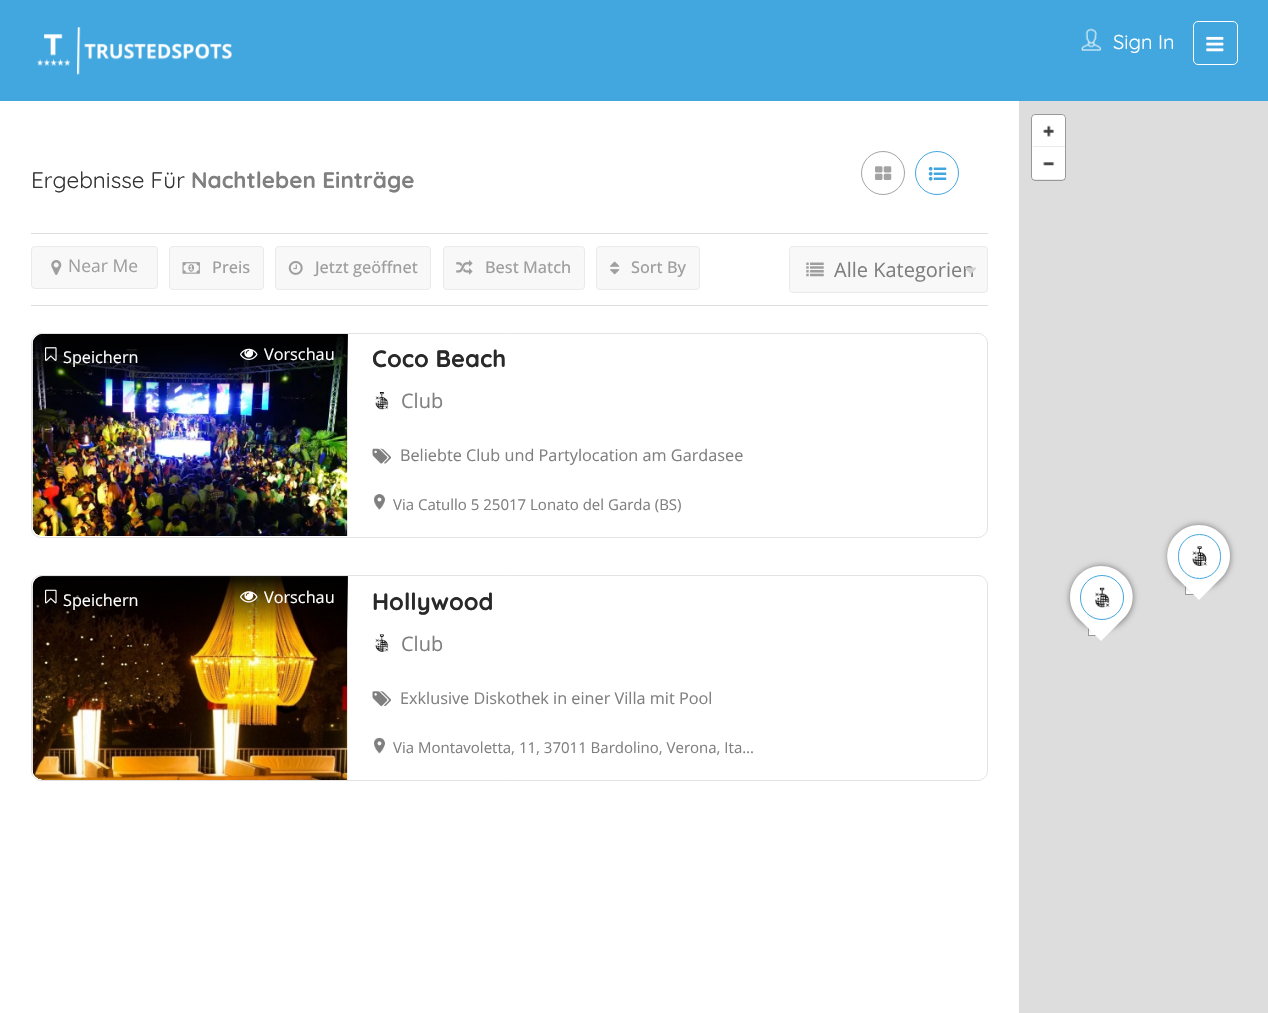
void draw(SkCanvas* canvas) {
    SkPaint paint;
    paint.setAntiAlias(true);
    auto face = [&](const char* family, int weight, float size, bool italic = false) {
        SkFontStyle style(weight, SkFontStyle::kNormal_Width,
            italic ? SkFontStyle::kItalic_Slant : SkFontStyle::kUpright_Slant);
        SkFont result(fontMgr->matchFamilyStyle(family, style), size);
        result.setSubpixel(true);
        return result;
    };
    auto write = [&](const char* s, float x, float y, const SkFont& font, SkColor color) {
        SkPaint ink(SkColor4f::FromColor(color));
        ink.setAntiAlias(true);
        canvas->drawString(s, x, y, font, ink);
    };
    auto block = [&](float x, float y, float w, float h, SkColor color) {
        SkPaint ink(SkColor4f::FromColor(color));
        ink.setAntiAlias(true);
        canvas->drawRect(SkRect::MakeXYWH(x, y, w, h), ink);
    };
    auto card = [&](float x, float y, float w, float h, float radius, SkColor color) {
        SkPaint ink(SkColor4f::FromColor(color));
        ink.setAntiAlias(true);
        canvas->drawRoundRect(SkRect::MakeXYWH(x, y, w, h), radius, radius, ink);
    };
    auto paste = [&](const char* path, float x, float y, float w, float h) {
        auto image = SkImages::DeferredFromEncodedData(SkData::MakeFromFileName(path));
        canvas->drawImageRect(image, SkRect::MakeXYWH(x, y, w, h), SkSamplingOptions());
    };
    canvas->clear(SK_ColorWHITE);
    block(0, 0, 1268, 101, SkColorSetRGB(66, 167, 223));
    paste("pic1.png", 37, 27, 195, 48);
    paste("pic2.png", 1081, 28, 21, 23);
    auto kFont1 = face("Quicksand", 400, 20);
    write("Sign In", 1113, 49, kFont1, SK_ColorWHITE);
    paint.setStyle(SkPaint::kStroke_Style);
    paint.setStrokeWidth(1);
    paint.setColor(SK_ColorWHITE);
    canvas->drawRoundRect(SkRect::MakeXYWH(1193.5f, 21.5f, 44, 43), 4.5f, 4.5f, paint);
    paste("pic3.png", 1206, 36, 18, 16);
    auto kFont2 = face("Quicksand", 400, 22.5f);
    write("Ergebnisse Für", 31, 188, kFont2, SkColorSetRGB(51, 51, 51));
    auto kFont3 = face("Quicksand", 700, 22.5f);
    write("Nachtleben Einträge", 191, 188, kFont3, SkColorSetRGB(127, 127, 127));
    paint.setColor(SkColorSetRGB(163, 163, 163));
    canvas->drawCircle(883, 173, 21.5f, paint);
    paste("pic4.png", 875, 166, 17, 14);
    paint.setColor(SkColorSetRGB(65, 166, 223));
    canvas->drawCircle(937, 173, 21.5f, paint);
    paste("pic5.png", 928, 166, 19, 15);
    block(31, 233, 957, 1, SkColorSetRGB(222, 222, 222));
    block(31, 305, 957, 1, SkColorSetRGB(222, 222, 222));
    paint.setStyle(SkPaint::kFill_Style);
    paint.setColor(SkColorSetRGB(248, 248, 248));
    canvas->drawRoundRect(SkRect::MakeXYWH(31.5f, 246.5f, 126, 42), 3.5f, 3.5f, paint);
    paint.setStyle(SkPaint::kStroke_Style);
    paint.setColor(SkColorSetRGB(234, 234, 234));
    canvas->drawRoundRect(SkRect::MakeXYWH(31.5f, 246.5f, 126, 42), 3.5f, 3.5f, paint);
    paste("pic6.png", 51, 260, 11, 15);
    auto kFont4 = face("Open Sans", 400, 17.5f);
    write("Near Me", 68, 272, kFont4, SkColorSetRGB(159, 159, 159));
    paint.setStyle(SkPaint::kFill_Style);
    paint.setColor(SkColorSetRGB(248, 248, 248));
    canvas->drawRoundRect(SkRect::MakeXYWH(169.5f, 246.5f, 94, 43), 3.5f, 3.5f, paint);
    paint.setStyle(SkPaint::kStroke_Style);
    paint.setColor(SkColorSetRGB(234, 234, 234));
    canvas->drawRoundRect(SkRect::MakeXYWH(169.5f, 246.5f, 94, 43), 3.5f, 3.5f, paint);
    paste("pic7.png", 182, 262, 18, 12);
    auto kFont5 = face("Open Sans", 500, 16.25f);
    write("Preis", 212, 273, kFont5, SkColorSetRGB(159, 159, 159));
    paint.setStyle(SkPaint::kFill_Style);
    paint.setColor(SkColorSetRGB(248, 248, 248));
    canvas->drawRoundRect(SkRect::MakeXYWH(275.5f, 246.5f, 155, 43), 3.5f, 3.5f, paint);
    paint.setStyle(SkPaint::kStroke_Style);
    paint.setColor(SkColorSetRGB(234, 234, 234));
    canvas->drawRoundRect(SkRect::MakeXYWH(275.5f, 246.5f, 155, 43), 3.5f, 3.5f, paint);
    paste("pic8.png", 288, 261, 15, 14);
    write("Jetzt geöffnet", 315, 273, kFont5, SkColorSetRGB(159, 159, 159));
    paint.setStyle(SkPaint::kFill_Style);
    paint.setColor(SkColorSetRGB(248, 248, 248));
    canvas->drawRoundRect(SkRect::MakeXYWH(443.5f, 246.5f, 141, 43), 3.5f, 3.5f, paint);
    paint.setStyle(SkPaint::kStroke_Style);
    paint.setColor(SkColorSetRGB(234, 234, 234));
    canvas->drawRoundRect(SkRect::MakeXYWH(443.5f, 246.5f, 141, 43), 3.5f, 3.5f, paint);
    paste("pic9.png", 456, 260, 17, 15);
    write("Best Match", 485, 273, kFont5, SkColorSetRGB(159, 159, 159));
    paint.setStyle(SkPaint::kFill_Style);
    paint.setColor(SkColorSetRGB(248, 248, 248));
    canvas->drawRoundRect(SkRect::MakeXYWH(596.5f, 246.5f, 103, 43), 3.5f, 3.5f, paint);
    paint.setStyle(SkPaint::kStroke_Style);
    paint.setColor(SkColorSetRGB(234, 234, 234));
    canvas->drawRoundRect(SkRect::MakeXYWH(596.5f, 246.5f, 103, 43), 3.5f, 3.5f, paint);
    paste("pic10.png", 610, 261, 10, 14);
    write("Sort By", 631, 273, kFont5, SkColorSetRGB(159, 159, 159));
    paint.setStyle(SkPaint::kFill_Style);
    paint.setColor(SkColorSetRGB(248, 248, 248));
    canvas->drawRoundRect(SkRect::MakeXYWH(789.5f, 246.5f, 198, 46), 3.5f, 3.5f, paint);
    paint.setStyle(SkPaint::kStroke_Style);
    paint.setColor(SkColorSetRGB(234, 234, 234));
    canvas->drawRoundRect(SkRect::MakeXYWH(789.5f, 246.5f, 198, 46), 3.5f, 3.5f, paint);
    block(790, 248, 1, 43, SkColorSetRGB(248, 248, 248));
    paste("pic11.png", 806, 262, 18, 15);
    auto kFont6 = face("Open Sans", 400, 20);
    write("Alle Kategorien", 834, 277, kFont6, SkColorSetRGB(127, 127, 127));
    paste("pic12.png", 965, 267, 11, 7);
    paint.setColor(SkColorSetRGB(227, 227, 227));
    canvas->drawRoundRect(SkRect::MakeXYWH(31.5f, 333.5f, 956, 204), 9.5f, 9.5f, paint);
    paste("pic13.png", 32, 334, 316, 202);
    paint.setStyle(SkPaint::kFill_Style);
    {
        const SkColor colors[] = {SkColorSetARGB(0, 0, 0, 0), SkColorSetARGB(230, 0, 0, 0)};
        const float stops[] = {0.08f, 0.94f};
        const SkPoint ends[] = {{190, 395}, {190, 334}};
        paint.setShader(SkGradientShader::MakeLinear(ends, colors, stops, 2, SkTileMode::kClamp));
        paint.setAlpha(255);
    }
    canvas->drawPath(SkPathBuilder().moveTo(43, 334).lineTo(348, 334).lineTo(348, 395).lineTo(33, 395).lineTo(33, 344).cubicTo(33, 338.5f, 37.5f, 334, 43, 334).close().detach(), paint);
    paste("pic14.png", 45, 347, 12, 14);
    auto kFont7 = face("Open Sans", 400, 16.25f);
    write("Speichern", 63, 363, kFont7, SK_ColorWHITE);
    paste("pic15.png", 240, 348, 18, 12);
    write("Vorschau", 264, 360, kFont7, SK_ColorWHITE);
    auto kFont8 = face("Quicksand", 700, 23.75f);
    write("Coco Beach", 372, 367, kFont8, SkColorSetRGB(41, 41, 41));
    paste("pic16.png", 375, 392, 14, 18);
    write("Club", 401, 408, kFont6, SkColorSetRGB(127, 127, 127));
    paste("pic17.png", 372, 448, 19, 16);
    write("Beliebte Club und Partylocation am Gardasee", 400, 461, kFont7, SkColorSetRGB(127, 127, 127));
    paste("pic18.png", 374, 494, 11, 16);
    auto kFont9 = face("Open Sans", 400, 15);
    write("Via Catullo 5 25017 Lonato del Garda (BS)", 393, 510, kFont9, SkColorSetRGB(127, 127, 127));
    paint.setStyle(SkPaint::kStroke_Style);
    paint.setShader(nullptr);
    paint.setColor(SkColorSetRGB(227, 227, 227));
    canvas->drawRoundRect(SkRect::MakeXYWH(31.5f, 575.5f, 956, 205), 9.5f, 9.5f, paint);
    paste("pic19.png", 32, 576, 316, 204);
    paint.setStyle(SkPaint::kFill_Style);
    {
        const SkColor colors[] = {SkColorSetARGB(0, 0, 0, 0), SkColorSetARGB(230, 0, 0, 0)};
        const float stops[] = {0.08f, 0.94f};
        const SkPoint ends[] = {{190, 638}, {190, 576}};
        paint.setShader(SkGradientShader::MakeLinear(ends, colors, stops, 2, SkTileMode::kClamp));
        paint.setAlpha(255);
    }
    canvas->drawPath(SkPathBuilder().moveTo(43, 576).lineTo(348, 576).lineTo(348, 638).lineTo(33, 638).lineTo(33, 586).cubicTo(33, 580.5f, 37.5f, 576, 43, 576).close().detach(), paint);
    paste("pic20.png", 45, 589, 12, 15);
    write("Speichern", 63, 606, kFont7, SK_ColorWHITE);
    paste("pic21.png", 240, 591, 18, 12);
    write("Vorschau", 264, 603, kFont7, SK_ColorWHITE);
    write("Hollywood", 372, 610, kFont8, SkColorSetRGB(41, 41, 41));
    paste("pic22.png", 375, 634, 14, 18);
    write("Club", 401, 651, kFont6, SkColorSetRGB(127, 127, 127));
    paste("pic23.png", 372, 691, 19, 15);
    write("Exklusive Diskothek in einer Villa mit Pool", 400, 704, kFont7, SkColorSetRGB(127, 127, 127));
    paste("pic24.png", 374, 737, 11, 17);
    write("Via Montavoletta, 11, 37011 Bardolino, Verona, Ita…", 393, 753, kFont9, SkColorSetRGB(127, 127, 127));
    block(1019, 101, 249, 912, SkColorSetRGB(221, 221, 221));
    card(1031, 114, 35, 67, 4, SK_ColorWHITE);
    paint.setStyle(SkPaint::kStroke_Style);
    paint.setShader(nullptr);
    paint.setColor(SkColorSetARGB(102, 0, 0, 0));
    canvas->drawRoundRect(SkRect::MakeXYWH(1031.5f, 114.5f, 34, 66), 3.5f, 3.5f, paint);
    paste("pic25.png", 1043, 125, 12, 12);
    block(1033, 146, 32, 1, SkColorSetRGB(236, 236, 236));
    paste("pic26.png", 1043, 162, 12, 4);
    block(1033, 179, 32, 1, SkColorSetARGB(20, 0, 0, 0));
    block(1089, 629, 6, 6, SK_ColorWHITE);
    paint.setColor(SkColorSetRGB(153, 153, 153));
    canvas->drawRect(SkRect::MakeXYWH(1088.5f, 621.5f, 14, 14), paint);
    paint.setStyle(SkPaint::kFill_Style);
    paint.setColor(SkColorSetARGB(120, 0, 0, 0));
    paint.setMaskFilter(SkMaskFilter::MakeBlur(kNormal_SkBlurStyle, 3));
    canvas->drawRoundRect(SkRect::MakeXYWH(1070, 566, 63, 63), 31.5f, 31.5f, paint);
    paint.setMaskFilter(nullptr);
    paint.setColor(SK_ColorWHITE);
    canvas->drawPath(SkPathBuilder().moveTo(1079, 575).cubicTo(1091, 563, 1111, 563, 1123, 575).cubicTo(1136, 587, 1136, 607, 1123, 619).lineTo(1101, 641).lineTo(1079, 619).cubicTo(1067, 607, 1067, 587, 1079, 575).close().detach(), paint);
    paint.setStyle(SkPaint::kStroke_Style);
    paint.setColor(SkColorSetRGB(65, 166, 223));
    canvas->drawRoundRect(SkRect::MakeXYWH(1080.5f, 575.5f, 43, 44), 21.5f, 21.5f, paint);
    paste("pic27.png", 1095, 587, 15, 21);
    block(1186, 587, 7, 7, SK_ColorWHITE);
    paint.setColor(SkColorSetRGB(153, 153, 153));
    canvas->drawRect(SkRect::MakeXYWH(1185.5f, 580.5f, 14, 14), paint);
    paint.setStyle(SkPaint::kFill_Style);
    paint.setColor(SkColorSetARGB(120, 0, 0, 0));
    paint.setMaskFilter(SkMaskFilter::MakeBlur(kNormal_SkBlurStyle, 3));
    canvas->drawRoundRect(SkRect::MakeXYWH(1168, 525, 62, 63), 31, 31, paint);
    paint.setMaskFilter(nullptr);
    paint.setColor(SK_ColorWHITE);
    canvas->drawPath(SkPathBuilder().moveTo(1177, 534).cubicTo(1189, 522, 1209, 522, 1221, 534).cubicTo(1233, 546, 1233, 566, 1221, 578).lineTo(1199, 600).lineTo(1177, 578).cubicTo(1164, 566, 1164, 546, 1177, 534).close().detach(), paint);
    paint.setStyle(SkPaint::kStroke_Style);
    paint.setColor(SkColorSetRGB(65, 166, 223));
    canvas->drawRoundRect(SkRect::MakeXYWH(1178.5f, 534.5f, 42, 44), 21, 21, paint);
    paste("pic28.png", 1192, 546, 15, 20);
}
